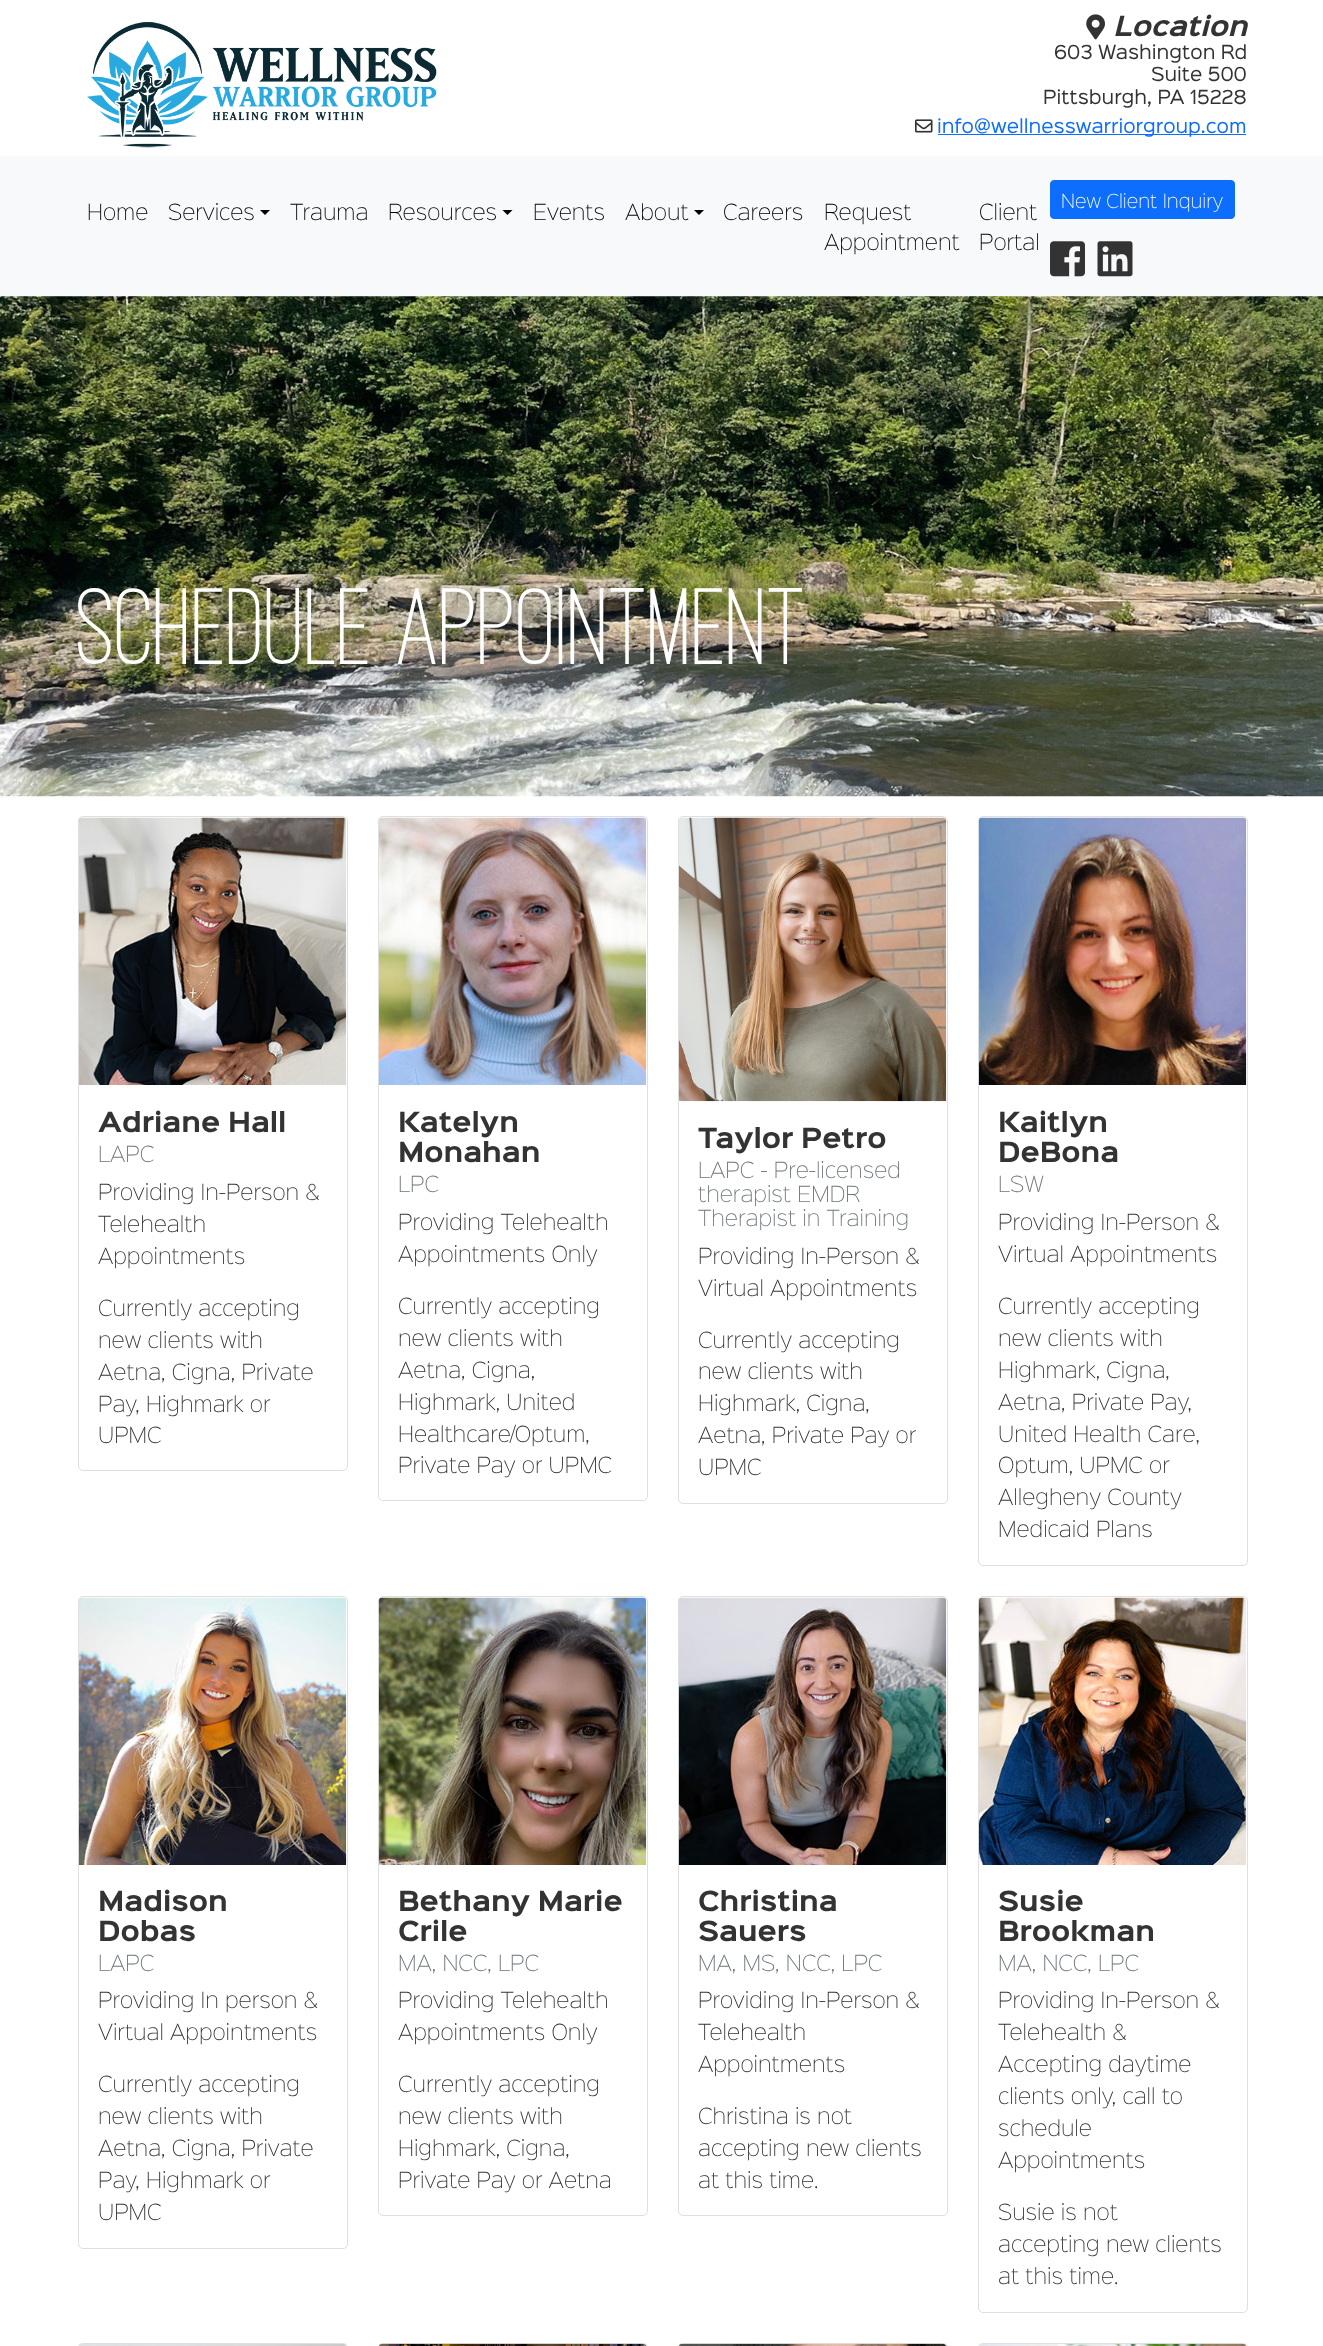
<!DOCTYPE html>
<meta charset="utf-8">
<style>body { margin: 0 } canvas { display: block }</style>
<canvas id="canvas" width="1323" height="2346"></canvas>
<img id="img1" src="images/1.png" hidden>
<img id="img2" src="images/2.png" hidden>
<img id="img3" src="images/3.png" hidden>
<img id="img4" src="images/4.png" hidden>
<img id="img5" src="images/5.png" hidden>
<img id="img6" src="images/6.png" hidden>
<img id="img7" src="images/7.png" hidden>
<img id="img8" src="images/8.png" hidden>
<img id="img9" src="images/9.png" hidden>
<img id="img10" src="images/10.png" hidden>
<img id="img11" src="images/11.png" hidden>
<img id="img12" src="images/12.png" hidden>
<img id="img13" src="images/13.png" hidden>
<img id="img14" src="images/14.png" hidden>
<img id="img15" src="images/15.png" hidden>
<img id="img16" src="images/16.png" hidden>
<img id="img17" src="images/17.png" hidden>
<img id="img18" src="images/18.png" hidden>
<script>
window.onload = function () {
    const canvas = document.getElementById('canvas');
    const context = canvas.getContext('2d');
    context.miterLimit = 4;
    context.fontKerning = 'normal';

    context.fillStyle = 'rgb(255, 255, 255)';
    context.fillRect(0, 0, 1323, 2346);
    context.drawImage(document.getElementById('img1'), 87, 22, 350, 126);
    context.drawImage(document.getElementById('img2'), 1086, 14, 19, 26);
    context.drawImage(document.getElementById('img3'), 915, 119, 18, 14);
    context.fillStyle = 'rgb(13, 110, 253)';
    context.fillRect(938, 134, 308, 1);
    context.fillStyle = 'rgb(248, 249, 250)';
    context.fillRect(0, 156, 1323, 140);
    context.fillStyle = 'rgb(0, 0, 0)';
    context.beginPath();
    context.moveTo(260, 210);
    context.lineTo(270, 210);
    context.lineTo(265, 215);
    context.closePath();
    context.fill();
    context.beginPath();
    context.moveTo(502.5, 210);
    context.lineTo(512.5, 210);
    context.lineTo(507.5, 215);
    context.closePath();
    context.fill();
    context.beginPath();
    context.moveTo(694, 210);
    context.lineTo(704, 210);
    context.lineTo(699, 215);
    context.closePath();
    context.fill();
    context.fillStyle = 'rgb(13, 110, 253)';
    context.beginPath();
    context.roundRect(1050.5, 180.5, 184, 38, 3.5);
    context.fill();
    context.strokeStyle = 'rgb(13, 110, 253)';
    context.stroke();
    context.drawImage(document.getElementById('img4'), 1050, 241, 35, 36);
    context.drawImage(document.getElementById('img5'), 1097, 241, 36, 36);
    context.drawImage(document.getElementById('img6'), 0, 296, 1323, 501);
    context.beginPath();
    context.roundRect(78.5, 816.5, 269, 654, 4.5);
    context.strokeStyle = 'rgb(223, 223, 223)';
    context.stroke();
    context.drawImage(document.getElementById('img7'), 78, 817, 269, 268);
    context.beginPath();
    context.roundRect(378.5, 816.5, 269, 684, 4.5);
    context.stroke();
    context.drawImage(document.getElementById('img8'), 378, 817, 269, 268);
    context.beginPath();
    context.roundRect(678.5, 816.5, 269, 687, 4.5);
    context.stroke();
    context.drawImage(document.getElementById('img9'), 678, 817, 269, 285);
    context.beginPath();
    context.roundRect(978.5, 816.5, 269, 749, 4.5);
    context.stroke();
    context.drawImage(document.getElementById('img10'), 978, 817, 269, 268);
    context.beginPath();
    context.roundRect(78.5, 1596.5, 269, 652, 4.5);
    context.stroke();
    context.drawImage(document.getElementById('img11'), 78, 1597, 269, 268);
    context.beginPath();
    context.roundRect(378.5, 1596.5, 269, 619, 4.5);
    context.stroke();
    context.drawImage(document.getElementById('img12'), 378, 1597, 269, 268);
    context.beginPath();
    context.roundRect(678.5, 1596.5, 269, 619, 4.5);
    context.stroke();
    context.drawImage(document.getElementById('img13'), 678, 1597, 269, 268);
    context.beginPath();
    context.roundRect(978.5, 1596.5, 269, 716, 4.5);
    context.stroke();
    context.drawImage(document.getElementById('img14'), 978, 1597, 269, 268);
    context.beginPath();
    context.roundRect(78.5, 2343.5, 269, 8, 4.5);
    context.stroke();
    context.drawImage(document.getElementById('img15'), 79, 2344, 267, 2);
    context.beginPath();
    context.roundRect(378.5, 2343.5, 269, 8, 4.5);
    context.stroke();
    context.drawImage(document.getElementById('img16'), 379, 2343, 267, 3);
    context.beginPath();
    context.roundRect(678.5, 2343.5, 269, 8, 4.5);
    context.stroke();
    context.drawImage(document.getElementById('img17'), 679, 2343, 267, 3);
    context.beginPath();
    context.roundRect(978.5, 2343.5, 269, 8, 4.5);
    context.stroke();
    context.drawImage(document.getElementById('img18'), 979, 2343, 267, 3);
    context.font = 'italic bold 25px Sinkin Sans';
    context.fillStyle = 'rgb(51, 51, 51)';
    context.fillText('Location', 1113, 36);
    context.font = '17.5px Sinkin Sans';
    context.fillText('603 Washington Rd', 1054, 59);
    context.fillText('Suite 500', 1151, 81);
    context.fillText('Pittsburgh, PA 15228', 1043, 104);
    context.fillStyle = 'rgb(13, 110, 253)';
    context.fillText('info@wellnesswarriorgroup.com', 937, 133);
    context.font = '300 20px Sinkin Sans';
    context.fillStyle = 'rgb(0, 0, 0)';
    context.fillText('Home', 87, 220);
    context.fillText('Services', 168, 220);
    context.fillText('Trauma', 290, 220);
    context.fillText('Resources', 388, 220);
    context.fillText('Events', 533, 220);
    context.fillText('About', 625, 220);
    context.fillText('Careers', 723, 220);
    context.fillText('Request', 824, 220);
    context.fillText('Appointment', 824, 250);
    context.fillText('Client', 979, 220);
    context.fillText('Portal', 979, 250);
    context.font = '300 17.5px Sinkin Sans';
    context.fillStyle = 'rgb(255, 255, 255)';
    context.fillText('New Client Inquiry', 1061, 208);
    context.font = '500 112.5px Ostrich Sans';
    context.fillText('Schedule Appointment', 77, 664);
    context.font = 'bold 25px Sinkin Sans';
    context.fillStyle = 'rgb(51, 51, 51)';
    context.fillText('Adriane Hall', 98, 1132);
    context.font = '300 20px Sinkin Sans';
    context.fillStyle = 'rgb(108, 117, 125)';
    context.fillText('LAPC', 98, 1162);
    context.fillStyle = 'rgb(51, 51, 51)';
    context.fillText('Providing In-Person &', 98, 1200);
    context.fillText('Telehealth', 98, 1232);
    context.fillText('Appointments', 98, 1264);
    context.fillText('Currently accepting', 98, 1316);
    context.fillText('new clients with', 98, 1348);
    context.fillText('Aetna, Cigna, Private', 98, 1380);
    context.fillText('Pay, Highmark or', 98, 1412);
    context.fillText('UPMC', 98, 1443);
    context.font = 'bold 25px Sinkin Sans';
    context.fillText('Katelyn', 398, 1132);
    context.fillText('Monahan', 398, 1162);
    context.font = '300 20px Sinkin Sans';
    context.fillStyle = 'rgb(108, 117, 125)';
    context.fillText('LPC', 398, 1192);
    context.fillStyle = 'rgb(51, 51, 51)';
    context.fillText('Providing Telehealth', 398, 1230);
    context.fillText('Appointments Only', 398, 1262);
    context.fillText('Currently accepting', 398, 1314);
    context.fillText('new clients with', 398, 1346);
    context.fillText('Aetna, Cigna,', 398, 1378);
    context.fillText('Highmark, United', 398, 1410);
    context.fillText('Healthcare/Optum,', 398, 1442);
    context.fillText('Private Pay or UPMC', 398, 1473);
    context.font = 'bold 25px Sinkin Sans';
    context.fillText('Taylor Petro', 698, 1148);
    context.font = '300 20px Sinkin Sans';
    context.fillStyle = 'rgb(108, 117, 125)';
    context.fillText('LAPC - Pre-licensed', 698, 1178);
    context.fillText('therapist EMDR', 698, 1202);
    context.fillText('Therapist in Training', 698, 1226);
    context.fillStyle = 'rgb(51, 51, 51)';
    context.fillText('Providing In-Person &', 698, 1264);
    context.fillText('Virtual Appointments', 698, 1296);
    context.fillText('Currently accepting', 698, 1348);
    context.fillText('new clients with', 698, 1379);
    context.fillText('Highmark, Cigna,', 698, 1411);
    context.fillText('Aetna, Private Pay or', 698, 1443);
    context.fillText('UPMC', 698, 1475);
    context.font = 'bold 25px Sinkin Sans';
    context.fillText('Kaitlyn', 998, 1132);
    context.fillText('DeBona', 998, 1162);
    context.font = '300 20px Sinkin Sans';
    context.fillStyle = 'rgb(108, 117, 125)';
    context.fillText('LSW', 998, 1192);
    context.fillStyle = 'rgb(51, 51, 51)';
    context.fillText('Providing In-Person &', 998, 1230);
    context.fillText('Virtual Appointments', 998, 1262);
    context.fillText('Currently accepting', 998, 1314);
    context.fillText('new clients with', 998, 1346);
    context.fillText('Highmark, Cigna,', 998, 1378);
    context.fillText('Aetna, Private Pay,', 998, 1410);
    context.fillText('United Health Care,', 998, 1442);
    context.fillText('Optum, UPMC or', 998, 1473);
    context.fillText('Allegheny County', 998, 1505);
    context.fillText('Medicaid Plans', 998, 1537);
    context.font = 'bold 25px Sinkin Sans';
    context.fillText('Madison', 98, 1911);
    context.fillText('Dobas', 98, 1941);
    context.font = '300 20px Sinkin Sans';
    context.fillStyle = 'rgb(108, 117, 125)';
    context.fillText('LAPC', 98, 1971);
    context.fillStyle = 'rgb(51, 51, 51)';
    context.fillText('Providing In person &', 98, 2008);
    context.fillText('Virtual Appointments', 98, 2040);
    context.fillText('Currently accepting', 98, 2092);
    context.fillText('new clients with', 98, 2124);
    context.fillText('Aetna, Cigna, Private', 98, 2156);
    context.fillText('Pay, Highmark or', 98, 2188);
    context.fillText('UPMC', 98, 2220);
    context.font = 'bold 25px Sinkin Sans';
    context.fillText('Bethany Marie', 398, 1911);
    context.fillText('Crile', 398, 1941);
    context.font = '300 20px Sinkin Sans';
    context.fillStyle = 'rgb(108, 117, 125)';
    context.fillText('MA, NCC, LPC', 398, 1971);
    context.fillStyle = 'rgb(51, 51, 51)';
    context.fillText('Providing Telehealth', 398, 2008);
    context.fillText('Appointments Only', 398, 2040);
    context.fillText('Currently accepting', 398, 2092);
    context.fillText('new clients with', 398, 2124);
    context.fillText('Highmark, Cigna,', 398, 2156);
    context.fillText('Private Pay or Aetna', 398, 2188);
    context.font = 'bold 25px Sinkin Sans';
    context.fillText('Christina', 698, 1911);
    context.fillText('Sauers', 698, 1941);
    context.font = '300 20px Sinkin Sans';
    context.fillStyle = 'rgb(108, 117, 125)';
    context.fillText('MA, MS, NCC, LPC', 698, 1971);
    context.fillStyle = 'rgb(51, 51, 51)';
    context.fillText('Providing In-Person &', 698, 2008);
    context.fillText('Telehealth', 698, 2040);
    context.fillText('Appointments', 698, 2072);
    context.fillText('Christina is not', 698, 2124);
    context.fillText('accepting new clients', 698, 2156);
    context.fillText('at this time.', 698, 2188);
    context.font = 'bold 25px Sinkin Sans';
    context.fillText('Susie', 998, 1911);
    context.fillText('Brookman', 998, 1941);
    context.font = '300 20px Sinkin Sans';
    context.fillStyle = 'rgb(108, 117, 125)';
    context.fillText('MA, NCC, LPC', 998, 1971);
    context.fillStyle = 'rgb(51, 51, 51)';
    context.fillText('Providing In-Person &', 998, 2008);
    context.fillText('Telehealth &', 998, 2040);
    context.fillText('Accepting daytime', 998, 2072);
    context.fillText('clients only, call to', 998, 2104);
    context.fillText('schedule', 998, 2136);
    context.fillText('Appointments', 998, 2168);
    context.fillText('Susie is not', 998, 2220);
    context.fillText('accepting new clients', 998, 2252);
    context.fillText('at this time.', 998, 2284);
};
</script>
